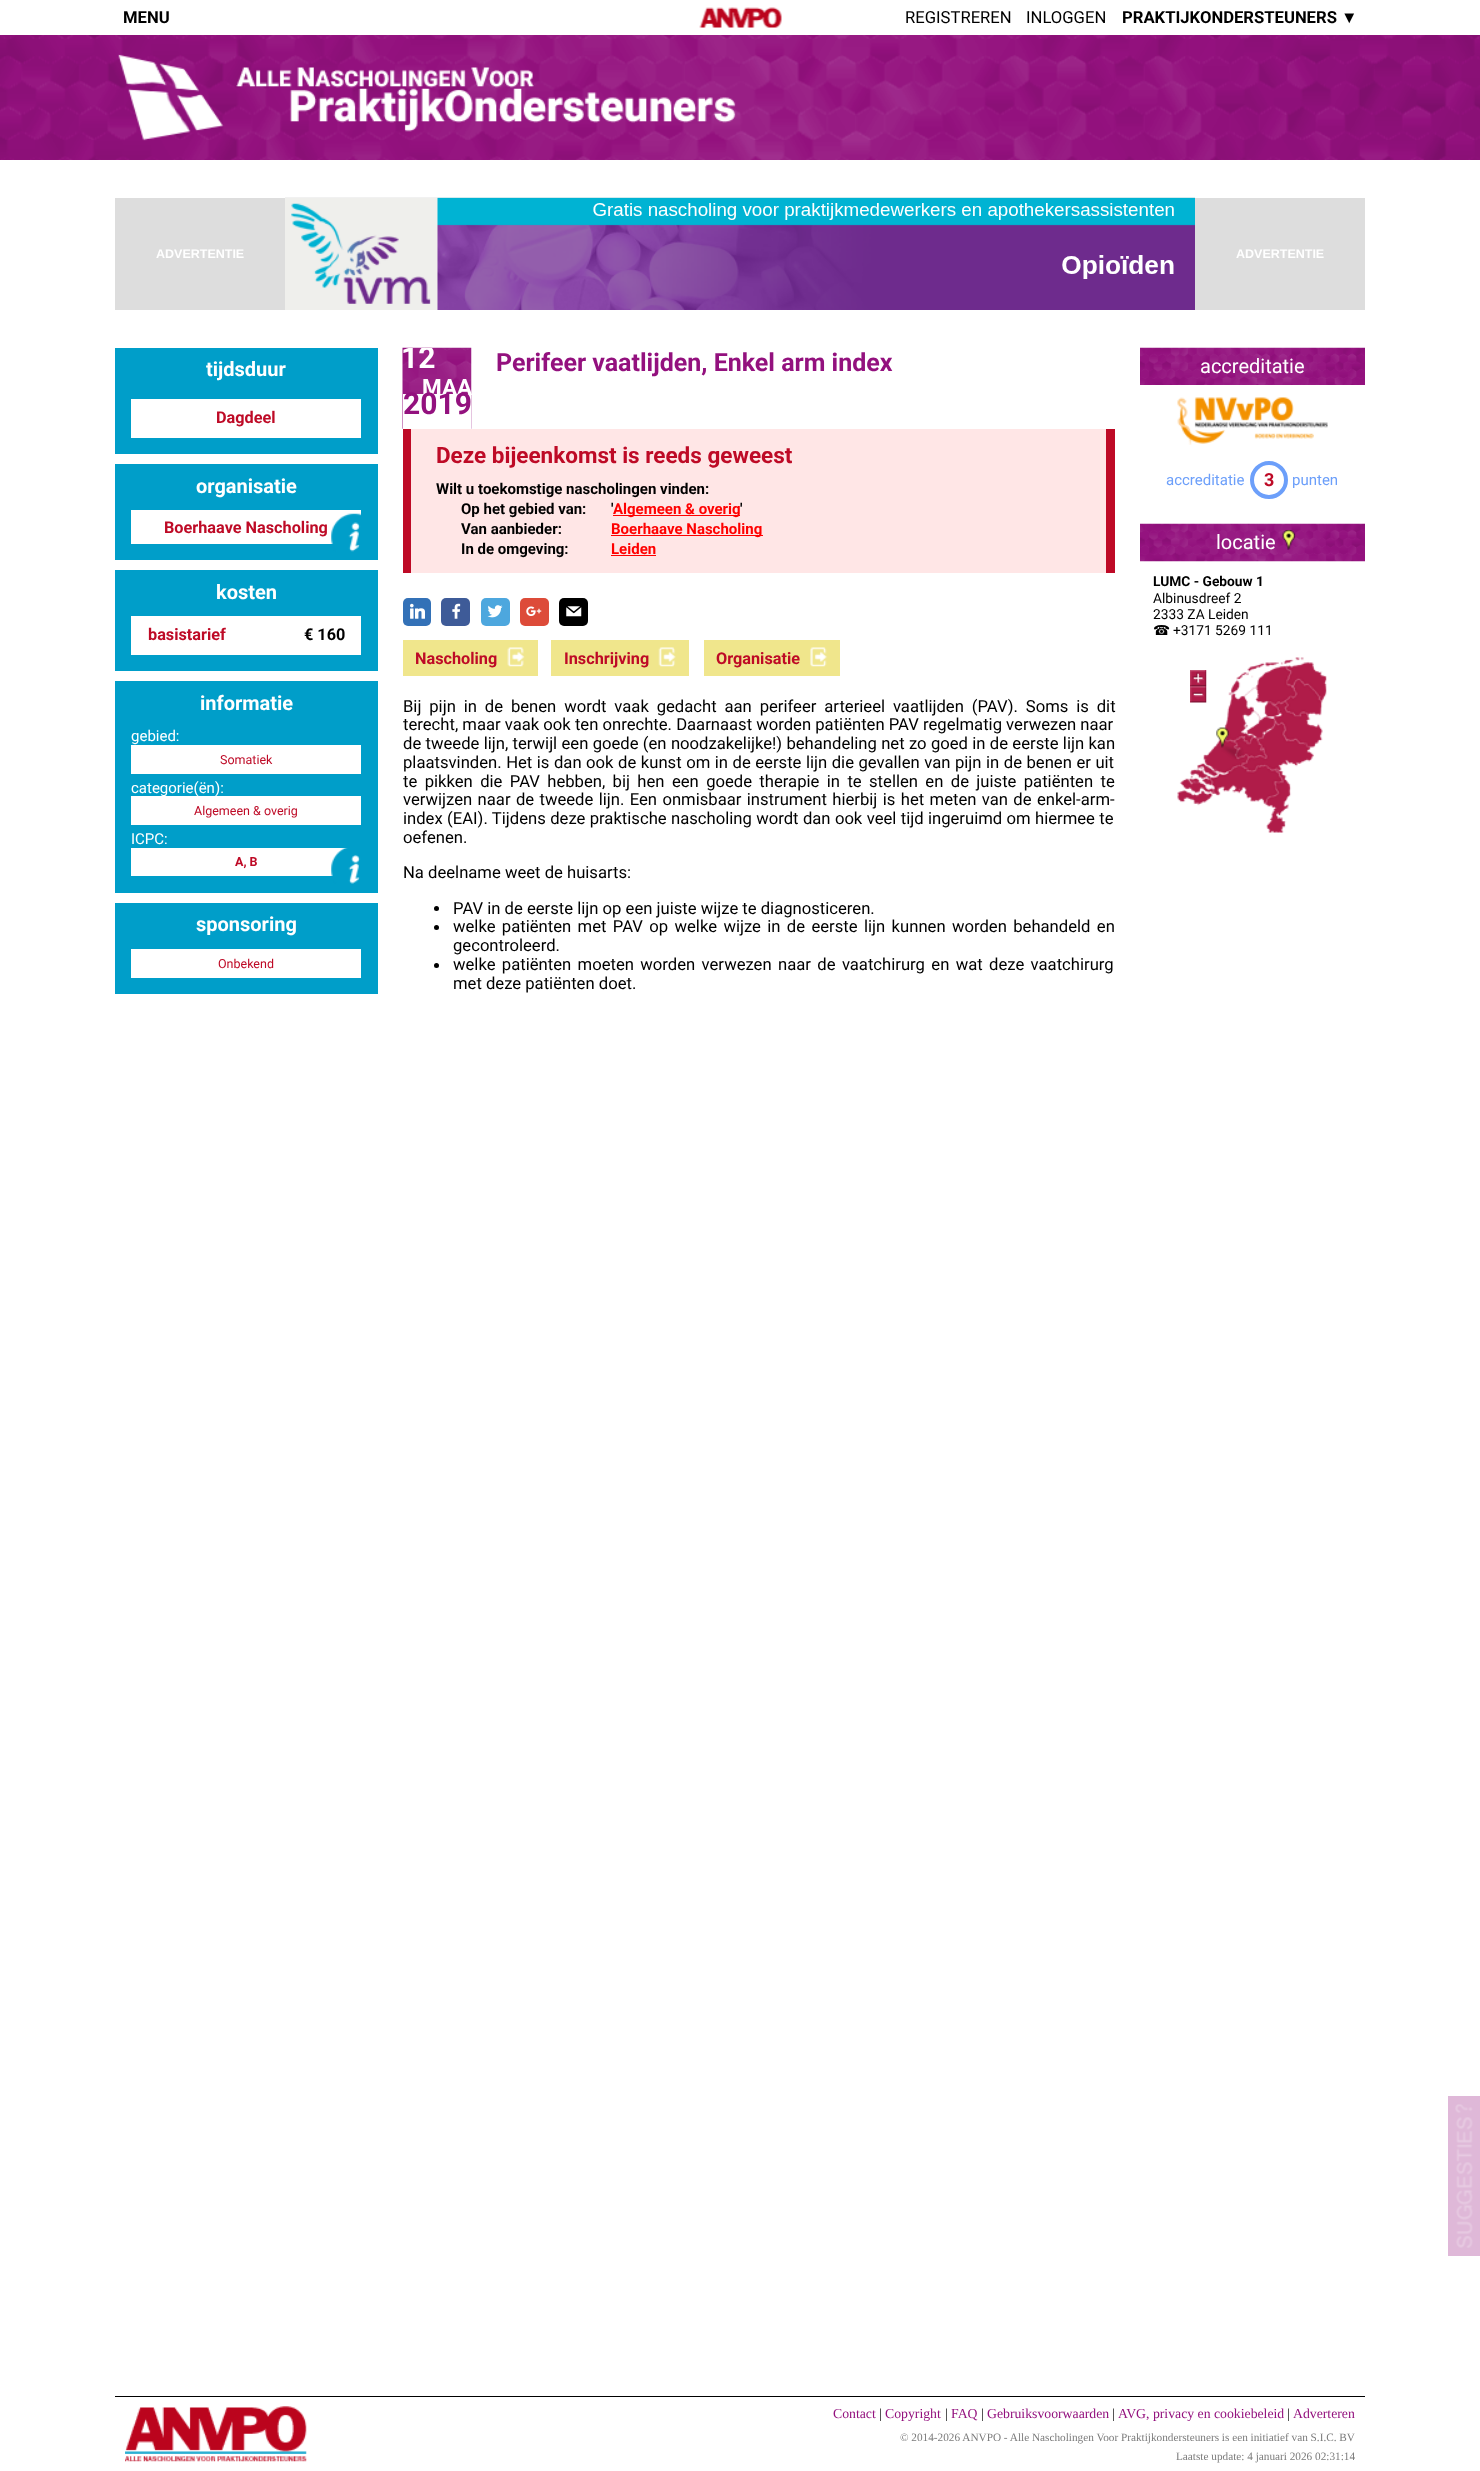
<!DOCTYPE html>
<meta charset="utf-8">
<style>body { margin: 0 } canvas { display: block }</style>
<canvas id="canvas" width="1480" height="2471"></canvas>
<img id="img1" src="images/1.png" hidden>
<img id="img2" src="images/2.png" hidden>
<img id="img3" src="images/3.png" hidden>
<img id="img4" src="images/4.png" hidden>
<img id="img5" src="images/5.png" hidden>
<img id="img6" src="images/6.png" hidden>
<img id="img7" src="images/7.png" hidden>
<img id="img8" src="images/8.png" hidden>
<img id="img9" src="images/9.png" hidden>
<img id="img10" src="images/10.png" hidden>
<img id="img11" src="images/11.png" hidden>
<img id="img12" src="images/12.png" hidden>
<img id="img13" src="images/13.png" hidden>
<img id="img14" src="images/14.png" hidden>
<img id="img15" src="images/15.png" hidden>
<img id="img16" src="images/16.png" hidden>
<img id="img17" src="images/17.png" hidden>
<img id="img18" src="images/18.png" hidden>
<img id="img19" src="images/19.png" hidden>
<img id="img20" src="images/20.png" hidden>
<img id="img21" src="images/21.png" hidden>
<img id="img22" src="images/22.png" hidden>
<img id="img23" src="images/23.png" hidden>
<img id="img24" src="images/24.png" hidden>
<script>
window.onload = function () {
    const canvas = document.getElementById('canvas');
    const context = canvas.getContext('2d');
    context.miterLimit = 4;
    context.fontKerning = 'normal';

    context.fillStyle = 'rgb(255, 255, 255)';
    context.fillRect(0, 0, 1480, 2471);
    context.drawImage(document.getElementById('img1'), 699, 7, 83, 21);
    context.drawImage(document.getElementById('img2'), 0, 35, 1480, 125);
    context.drawImage(document.getElementById('img3'), 118, 54, 618, 87);
    context.fillStyle = 'rgb(221, 221, 221)';
    context.fillRect(115, 198, 1250, 112);
    context.drawImage(document.getElementById('img4'), 285, 197, 910, 113);
    context.fillStyle = 'rgb(0, 158, 201)';
    context.fillRect(115, 348, 263, 106);
    context.fillStyle = 'rgb(255, 255, 255)';
    context.fillRect(131, 399, 230, 39);
    context.fillStyle = 'rgb(0, 158, 201)';
    context.fillRect(115, 464, 263, 96);
    context.fillStyle = 'rgb(255, 255, 255)';
    context.fillRect(131, 510, 230, 34);
    context.drawImage(document.getElementById('img5'), 331, 513, 30, 39);
    context.fillStyle = 'rgb(0, 158, 201)';
    context.fillRect(115, 570, 263, 101);
    context.fillStyle = 'rgb(255, 255, 255)';
    context.fillRect(131, 616, 230, 39);
    context.fillStyle = 'rgb(0, 158, 201)';
    context.fillRect(115, 681, 263, 212);
    context.fillStyle = 'rgb(255, 255, 255)';
    context.fillRect(131, 745, 230, 29);
    context.fillRect(131, 796, 230, 29);
    context.fillRect(131, 848, 217, 28);
    context.drawImage(document.getElementById('img6'), 331, 848, 30, 36);
    context.fillStyle = 'rgb(0, 158, 201)';
    context.fillRect(115, 903, 263, 91);
    context.fillStyle = 'rgb(255, 255, 255)';
    context.fillRect(131, 949, 230, 29);
    context.drawImage(document.getElementById('img7'), 402, 347, 70, 82);
    context.fillRect(403, 394, 68, 35);
    context.fillStyle = 'rgb(255, 230, 230)';
    context.fillRect(411, 429, 695, 144);
    context.fillStyle = 'rgb(190, 10, 38)';
    context.fillRect(1106, 429, 9, 144);
    context.fillRect(403, 429, 8, 144);
    context.fillStyle = 'rgb(255, 0, 0)';
    context.fillRect(613, 515, 127, 1);
    context.fillRect(611, 535, 152, 1);
    context.fillRect(611, 555, 45, 1);
    context.fillStyle = 'rgb(51, 113, 183)';
    context.beginPath();
    context.roundRect(403, 598, 28, 28, 5);
    context.fill();
    context.drawImage(document.getElementById('img8'), 410, 603, 15, 16);
    context.fillStyle = 'rgb(62, 91, 152)';
    context.beginPath();
    context.roundRect(441, 598, 29, 28, 5);
    context.fill();
    context.drawImage(document.getElementById('img9'), 452, 603, 9, 16);
    context.fillStyle = 'rgb(77, 167, 222)';
    context.beginPath();
    context.roundRect(481, 598, 29, 28, 5);
    context.fill();
    context.drawImage(document.getElementById('img10'), 487, 605, 16, 13);
    context.fillStyle = 'rgb(221, 75, 57)';
    context.beginPath();
    context.roundRect(520, 598, 29, 28, 5);
    context.fill();
    context.drawImage(document.getElementById('img11'), 526, 606, 16, 10);
    context.fillStyle = 'rgb(0, 0, 0)';
    context.beginPath();
    context.roundRect(559, 598, 29, 28, 5);
    context.fill();
    context.drawImage(document.getElementById('img12'), 566, 606, 16, 11);
    context.fillStyle = 'rgb(240, 230, 140)';
    context.fillRect(403, 640, 135, 36);
    context.drawImage(document.getElementById('img13'), 507, 647, 18, 20);
    context.fillRect(551, 640, 138, 36);
    context.drawImage(document.getElementById('img14'), 658, 647, 18, 20);
    context.fillRect(704, 640, 136, 36);
    context.drawImage(document.getElementById('img15'), 810, 647, 18, 20);
    context.fillStyle = 'rgb(0, 0, 0)';
    context.beginPath();
    context.arc(436.5, 908.5, 2.5, 0, 2 * Math.PI);
    context.fill();
    context.beginPath();
    context.arc(436.5, 927.5, 2.5, 0, 2 * Math.PI);
    context.fill();
    context.beginPath();
    context.arc(436.5, 965.5, 2.5, 0, 2 * Math.PI);
    context.fill();
    context.drawImage(document.getElementById('img16'), 1140, 347, 225, 38);
    context.drawImage(document.getElementById('img17'), 1177, 397, 151, 48);
    context.beginPath();
    context.arc(1269, 480, 17, 0, 2 * Math.PI);
    context.strokeStyle = 'rgb(108, 159, 250)';
    context.lineWidth = 4;
    context.stroke();
    context.drawImage(document.getElementById('img18'), 1140, 523, 225, 39);
    context.drawImage(document.getElementById('img19'), 1282, 530, 13, 20);
    context.drawImage(document.getElementById('img20'), 1177, 657, 150, 176);
    context.drawImage(document.getElementById('img21'), 1190, 670, 17, 33);
    context.drawImage(document.getElementById('img22'), 1216, 727, 28, 33);
    context.fillStyle = 'rgb(223, 184, 216)';
    context.fillRect(1448, 2096, 32, 160);
    context.drawImage(document.getElementById('img23'), 1455, 2104, 18, 144);
    context.fillStyle = 'rgb(0, 0, 0)';
    context.fillRect(115, 2396, 1250, 1);
    context.drawImage(document.getElementById('img24'), 125, 2406, 182, 56);
    context.font = 'bold 16.65px Roboto';
    context.fillText('MENU', 123, 23);
    context.font = '16.65px Roboto';
    context.fillText('REGISTREREN', 905, 23);
    context.fillText('INLOGGEN', 1026, 23);
    context.font = 'bold 16.65px Roboto';
    context.fillText('PRAKTIJKONDERSTEUNERS', 1122, 23);
    context.font = 'bold 16.65px Liberation Sans';
    context.fillText('▼', 1341, 23);
    context.font = 'bold 12.5px Liberation Sans';
    context.fillStyle = 'rgb(255, 255, 255)';
    context.fillText('ADVERTENTIE', 156, 258);
    context.fillText('ADVERTENTIE', 1236, 258);
    context.font = 'bold 20px Roboto';
    context.fillText('tijdsduur', 206, 376);
    context.font = 'bold 16.25px Roboto';
    context.fillStyle = 'rgb(190, 10, 38)';
    context.fillText('Dagdeel', 216, 423);
    context.font = 'bold 20px Roboto';
    context.fillStyle = 'rgb(255, 255, 255)';
    context.fillText('organisatie', 196, 493);
    context.font = 'bold 16.25px Roboto';
    context.fillStyle = 'rgb(190, 10, 38)';
    context.fillText('Boerhaave Nascholing', 164, 533);
    context.font = 'bold 20px Roboto';
    context.fillStyle = 'rgb(255, 255, 255)';
    context.fillText('kosten', 216, 599);
    context.font = 'bold 16.25px Roboto';
    context.fillStyle = 'rgb(190, 10, 38)';
    context.fillText('basistarief', 148, 640);
    context.fillStyle = 'rgb(0, 0, 0)';
    context.fillText('€ 160', 304, 640);
    context.font = 'bold 20px Roboto';
    context.fillStyle = 'rgb(255, 255, 255)';
    context.fillText('informatie', 200, 710);
    context.font = '15px Roboto';
    context.fillText('gebied:', 131, 741);
    context.font = '12.5px Roboto';
    context.fillStyle = 'rgb(190, 10, 38)';
    context.fillText('Somatiek', 220, 764);
    context.font = '15px Roboto';
    context.fillStyle = 'rgb(255, 255, 255)';
    context.fillText('categorie(ën):', 131, 793);
    context.font = '12.5px Roboto';
    context.fillStyle = 'rgb(190, 10, 38)';
    context.fillText('Algemeen & overig', 194, 815);
    context.font = '15px Roboto';
    context.fillStyle = 'rgb(255, 255, 255)';
    context.fillText('ICPC:', 131, 844);
    context.font = 'bold 12.5px Roboto';
    context.fillStyle = 'rgb(190, 10, 38)';
    context.fillText('A, B', 235, 866);
    context.font = 'bold 20px Roboto';
    context.fillStyle = 'rgb(255, 255, 255)';
    context.fillText('sponsoring', 196, 931);
    context.font = '12.5px Roboto';
    context.fillStyle = 'rgb(190, 10, 38)';
    context.fillText('Onbekend', 218, 968);
    context.save();
    context.beginPath();
    context.rect(115, 348, 1250, 661);
    context.clip();
    context.font = 'bold 30px Roboto';
    context.fillStyle = 'rgb(255, 255, 255)';
    context.fillText('12', 401, 368);
    context.restore();
    context.font = 'bold 22.5px Roboto';
    context.fillStyle = 'rgb(255, 255, 255)';
    context.fillText('MAA', 422, 395);
    context.font = 'bold 30px Roboto';
    context.fillStyle = 'rgb(147, 17, 126)';
    context.fillText('2019', 403, 414);
    context.font = 'bold 25px Roboto';
    context.fillText('Perifeer vaatlijden, Enkel arm index', 496, 371);
    context.font = 'bold 22.5px Roboto';
    context.fillStyle = 'rgb(190, 10, 38)';
    context.fillText('Deze bijeenkomst is reeds geweest', 436, 463);
    context.font = 'bold 15px Roboto';
    context.fillStyle = 'rgb(0, 0, 0)';
    context.fillText('Wilt u toekomstige nascholingen vinden:', 436, 494);
    context.fillText('Op het gebied van:', 461, 514);
    context.fillText('\'', 611, 514);
    context.fillStyle = 'rgb(255, 0, 0)';
    context.fillText('Algemeen & overig', 613, 514);
    context.fillStyle = 'rgb(0, 0, 0)';
    context.fillText('\'', 740, 514);
    context.fillText('Van aanbieder:', 461, 534);
    context.fillStyle = 'rgb(255, 0, 0)';
    context.fillText('Boerhaave Nascholing', 611, 534);
    context.fillStyle = 'rgb(0, 0, 0)';
    context.fillText('In de omgeving:', 461, 554);
    context.fillStyle = 'rgb(255, 0, 0)';
    context.fillText('Leiden', 611, 554);
    context.font = 'bold 16.25px Roboto';
    context.fillStyle = 'rgb(190, 10, 38)';
    context.fillText('Nascholing', 415, 664);
    context.fillText('Inschrijving', 564, 664);
    context.fillText('Organisatie', 716, 664);
    context.wordSpacing = '3.75px';
    context.font = '16.65px Roboto';
    context.fillStyle = 'rgb(0, 0, 0)';
    context.fillText('Bij pijn in de benen wordt vaak gedacht aan perifeer arterieel vaatlijden (PAV). Soms is dit', 403, 712);
    context.wordSpacing = '0px';
    context.fillText('terecht, maar vaak ook ten onrechte. Daarnaast worden patiënten PAV regelmatig verwezen naar', 403, 730);
    context.wordSpacing = '0.2px';
    context.fillText('de tweede lijn, terwijl een goede (en noodzakelijke!) behandeling net zo goed in de eerste lijn kan', 403, 749);
    context.wordSpacing = '0.4px';
    context.fillText('plaatsvinden. Het is dan ook de kunst om in de eerste lijn die gevallen van pijn in de benen er uit', 403, 768);
    context.wordSpacing = '3.25px';
    context.fillText('te pikken die PAV hebben, bij hen een goede therapie in te stellen en de juiste patiënten te', 403, 787);
    context.wordSpacing = '1.25px';
    context.fillText('verwijzen naar de tweede lijn. Een onmisbaar instrument hierbij is het meten van de enkel-arm-', 403, 805);
    context.wordSpacing = '0.25px';
    context.fillText('index (EAI). Tijdens deze praktische nascholing wordt dan ook veel tijd ingeruimd om hiermee te', 403, 824);
    context.wordSpacing = '0px';
    context.fillText('oefenen.', 403, 843);
    context.fillText('Na deelname weet de huisarts:', 403, 878);
    context.fillText('PAV in de eerste lijn op een juiste wijze te diagnosticeren.', 453, 914);
    context.wordSpacing = '2.25px';
    context.fillText('welke patiënten met PAV op welke wijze in de eerste lijn kunnen worden behandeld en', 453, 932);
    context.wordSpacing = '0px';
    context.fillText('gecontroleerd.', 453, 951);
    context.wordSpacing = '2.25px';
    context.fillText('welke patiënten moeten worden verwezen naar de vaatchirurg en wat deze vaatchirurg', 453, 970);
    context.wordSpacing = '0px';
    context.fillText('met deze patiënten doet.', 453, 989);
    context.font = '20px Roboto';
    context.fillStyle = 'rgb(255, 255, 255)';
    context.fillText('accreditatie', 1200, 373);
    context.font = '15px Roboto';
    context.fillStyle = 'rgb(108, 159, 250)';
    context.fillText('accreditatie', 1166, 485);
    context.font = 'bold 18px Roboto';
    context.fillStyle = 'rgb(190, 10, 38)';
    context.fillText('3', 1264, 486);
    context.font = '15px Roboto';
    context.fillStyle = 'rgb(108, 159, 250)';
    context.fillText('punten', 1292, 485);
    context.font = '20px Roboto';
    context.fillStyle = 'rgb(255, 255, 255)';
    context.fillText('locatie', 1216, 549);
    context.font = 'bold 13.75px Roboto';
    context.fillStyle = 'rgb(0, 0, 0)';
    context.fillText('LUMC - Gebouw 1', 1153, 586);
    context.font = '13.75px Roboto';
    context.fillText('Albinusdreef 2', 1153, 603);
    context.fillText('2333 ZA Leiden', 1153, 619);
    context.font = '13.75px DejaVu Sans';
    context.fillText('☎', 1153, 635);
    context.font = '13.75px Roboto';
    context.fillText('+3171 5269 111', 1173, 635);
    context.font = '13.75px Liberation Serif';
    context.fillStyle = 'rgb(147, 17, 126)';
    context.fillText('Contact', 833, 2418);
    context.fillStyle = 'rgb(0, 0, 0)';
    context.fillText('|', 879, 2418);
    context.fillStyle = 'rgb(147, 17, 126)';
    context.fillText('Copyright', 885, 2418);
    context.fillStyle = 'rgb(0, 0, 0)';
    context.fillText('|', 945, 2418);
    context.fillStyle = 'rgb(147, 17, 126)';
    context.fillText('FAQ', 951, 2418);
    context.fillStyle = 'rgb(0, 0, 0)';
    context.fillText('|', 981, 2418);
    context.fillStyle = 'rgb(147, 17, 126)';
    context.fillText('Gebruiksvoorwaarden', 987, 2418);
    context.fillStyle = 'rgb(0, 0, 0)';
    context.fillText('|', 1112, 2418);
    context.fillStyle = 'rgb(147, 17, 126)';
    context.fillText('AVG, privacy en cookiebeleid', 1118, 2418);
    context.fillStyle = 'rgb(0, 0, 0)';
    context.fillText('|', 1287, 2418);
    context.fillStyle = 'rgb(147, 17, 126)';
    context.fillText('Adverteren', 1293, 2418);
    context.font = '11.25px Liberation Serif';
    context.fillStyle = 'rgb(124, 124, 124)';
    context.fillText('© 2014-2026 ANVPO - Alle Nascholingen Voor Praktijkondersteuners is een initiatief van S.I.C. BV', 900, 2441);
    context.fillText('Laatste update: 4 januari 2026 02:31:14', 1176, 2460);
};
</script>
